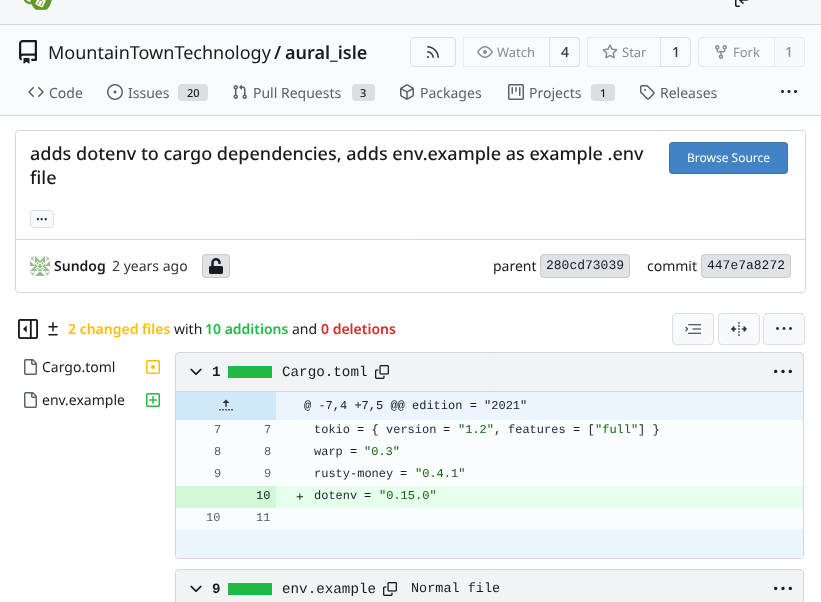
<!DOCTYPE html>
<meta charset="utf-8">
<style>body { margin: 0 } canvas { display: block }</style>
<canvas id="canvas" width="821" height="602"></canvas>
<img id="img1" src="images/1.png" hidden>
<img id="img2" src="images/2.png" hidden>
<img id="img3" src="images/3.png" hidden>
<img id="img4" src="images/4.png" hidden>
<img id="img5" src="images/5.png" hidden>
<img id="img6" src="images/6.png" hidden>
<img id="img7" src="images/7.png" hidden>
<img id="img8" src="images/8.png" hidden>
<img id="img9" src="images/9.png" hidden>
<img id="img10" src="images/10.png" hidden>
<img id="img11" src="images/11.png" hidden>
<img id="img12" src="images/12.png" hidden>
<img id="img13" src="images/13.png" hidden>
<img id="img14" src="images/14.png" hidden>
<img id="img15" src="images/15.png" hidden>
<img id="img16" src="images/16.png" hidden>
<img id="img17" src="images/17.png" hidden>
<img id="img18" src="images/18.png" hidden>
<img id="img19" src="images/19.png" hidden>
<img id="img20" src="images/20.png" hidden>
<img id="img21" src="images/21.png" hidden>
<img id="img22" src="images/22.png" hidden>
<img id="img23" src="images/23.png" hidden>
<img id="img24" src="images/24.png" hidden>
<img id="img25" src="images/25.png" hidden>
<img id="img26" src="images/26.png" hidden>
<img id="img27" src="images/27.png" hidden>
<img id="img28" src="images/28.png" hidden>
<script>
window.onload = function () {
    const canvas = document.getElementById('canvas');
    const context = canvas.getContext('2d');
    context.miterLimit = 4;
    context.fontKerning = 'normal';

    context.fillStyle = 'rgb(255, 255, 255)';
    context.fillRect(0, 0, 821, 602);
    context.fillStyle = 'rgb(246, 247, 250)';
    context.fillRect(0, 0, 821, 24);
    context.fillStyle = 'rgb(208, 215, 222)';
    context.fillRect(0, 24, 821, 1);
    context.drawImage(document.getElementById('img1'), 23, 0, 29, 10);
    context.drawImage(document.getElementById('img2'), 735, 0, 13, 7);
    context.fillStyle = 'rgb(249, 250, 251)';
    context.fillRect(0, 25, 821, 90);
    context.drawImage(document.getElementById('img3'), 19, 40, 18, 24);
    context.beginPath();
    context.roundRect(410.5, 37.5, 45, 29, 3.5);
    context.strokeStyle = 'rgb(221, 222, 225)';
    context.stroke();
    context.drawImage(document.getElementById('img4'), 427, 46, 12, 12);
    context.beginPath();
    context.roundRect(549.5, 37.5, 30, 29, [0, 3.5, 3.5, 0]);
    context.stroke();
    context.fillStyle = 'rgba(248, 249, 251, 0.55)';
    context.beginPath();
    context.roundRect(463, 37, 87, 30, [4, 0, 0, 4]);
    context.fill();
    context.strokeStyle = 'rgba(0, 0, 23, 0.06)';
    context.strokeRect(463.5, 37.5, 86, 29);
    context.drawImage(document.getElementById('img5'), 477, 46, 16, 12);
    context.beginPath();
    context.roundRect(660.5, 37.5, 30, 29, [0, 3.5, 3.5, 0]);
    context.strokeStyle = 'rgb(221, 222, 225)';
    context.stroke();
    context.beginPath();
    context.roundRect(587, 37, 74, 30, [4, 0, 0, 4]);
    context.fill();
    context.strokeStyle = 'rgba(0, 0, 23, 0.06)';
    context.strokeRect(587.5, 37.5, 73, 29);
    context.drawImage(document.getElementById('img6'), 602, 44, 16, 15);
    context.beginPath();
    context.roundRect(698.5, 37.5, 76, 29, [3.5, 0, 0, 3.5]);
    context.strokeStyle = 'rgb(233, 234, 237)';
    context.stroke();
    context.drawImage(document.getElementById('img7'), 715, 45, 12, 14);
    context.fillStyle = 'rgb(248, 249, 251)';
    context.beginPath();
    context.roundRect(774.5, 37.5, 30, 29, [0, 3.5, 3.5, 0]);
    context.fill();
    context.stroke();
    context.drawImage(document.getElementById('img8'), 28, 87, 16, 10);
    context.drawImage(document.getElementById('img9'), 107, 84, 16, 16);
    context.fillStyle = 'rgb(219, 223, 226)';
    context.beginPath();
    context.roundRect(178, 84, 30, 17, 4);
    context.fill();
    context.drawImage(document.getElementById('img10'), 233, 84, 14, 15);
    context.beginPath();
    context.roundRect(352, 84, 23, 17, 4);
    context.fill();
    context.drawImage(document.getElementById('img11'), 400, 84, 14, 16);
    context.drawImage(document.getElementById('img12'), 508, 84, 16, 16);
    context.beginPath();
    context.roundRect(591, 84, 24, 17, 4);
    context.fill();
    context.drawImage(document.getElementById('img13'), 640, 85, 15, 15);
    context.drawImage(document.getElementById('img14'), 781, 90, 16, 3);
    context.fillStyle = 'rgb(208, 215, 222)';
    context.fillRect(0, 115, 821, 1);
    context.beginPath();
    context.roundRect(15.5, 130.5, 790, 109, [3.5, 3.5, 0, 0]);
    context.strokeStyle = 'rgb(208, 215, 222)';
    context.stroke();
    context.fillStyle = 'rgb(65, 131, 196)';
    context.beginPath();
    context.roundRect(669, 142, 119, 32, 4);
    context.fill();
    context.beginPath();
    context.roundRect(669.5, 142.5, 118, 31, 3.5);
    context.strokeStyle = 'rgba(0, 0, 23, 0.11)';
    context.stroke();
    context.fillStyle = 'rgb(248, 249, 251)';
    context.beginPath();
    context.roundRect(30.5, 210.5, 23, 17, 3.5);
    context.fill();
    context.strokeStyle = 'rgb(220, 221, 225)';
    context.stroke();
    context.fillStyle = 'rgb(208, 215, 222)';
    context.beginPath();
    context.moveTo(15, 240);
    context.lineTo(806, 240);
    context.lineTo(806, 289);
    context.bezierCurveTo(806, 291, 804, 293, 802, 293);
    context.lineTo(19, 293);
    context.bezierCurveTo(17, 293, 15, 291, 15, 289);
    context.closePath();
    context.moveTo(16, 240);
    context.lineTo(805, 240);
    context.lineTo(805, 289);
    context.bezierCurveTo(805, 291, 804, 292, 802, 292);
    context.lineTo(19, 292);
    context.bezierCurveTo(17, 292, 16, 291, 16, 289);
    context.closePath();
    context.fill('evenodd');
    context.drawImage(document.getElementById('img15'), 30, 256, 20, 20);
    context.fillStyle = 'rgb(224, 226, 229)';
    context.beginPath();
    context.roundRect(202, 254, 28, 24, 4);
    context.fill();
    context.beginPath();
    context.roundRect(202.5, 254.5, 27, 23, 3.5);
    context.strokeStyle = 'rgba(0, 0, 23, 0.11)';
    context.stroke();
    context.drawImage(document.getElementById('img16'), 209, 258, 14, 16);
    context.beginPath();
    context.roundRect(540, 254, 90, 24, 4);
    context.fill();
    context.beginPath();
    context.roundRect(540.5, 254.5, 89, 23, 3.5);
    context.stroke();
    context.beginPath();
    context.roundRect(701, 254, 90, 24, 4);
    context.fill();
    context.beginPath();
    context.roundRect(701.5, 254.5, 89, 23, 3.5);
    context.stroke();
    context.drawImage(document.getElementById('img17'), 18, 319, 20, 20);
    context.drawImage(document.getElementById('img18'), 48, 322, 10, 14);
    context.fillStyle = 'rgb(248, 249, 251)';
    context.beginPath();
    context.roundRect(672.5, 313.5, 41, 31, 3.5);
    context.fill();
    context.strokeStyle = 'rgb(220, 221, 225)';
    context.stroke();
    context.drawImage(document.getElementById('img19'), 685, 324, 16, 10);
    context.beginPath();
    context.roundRect(718.5, 313.5, 41, 31, 3.5);
    context.fill();
    context.stroke();
    context.drawImage(document.getElementById('img20'), 731, 322, 16, 14);
    context.beginPath();
    context.roundRect(763.5, 313.5, 41, 31, 3.5);
    context.fill();
    context.stroke();
    context.drawImage(document.getElementById('img21'), 776, 327, 16, 3);
    context.drawImage(document.getElementById('img22'), 24, 359, 13, 16);
    context.drawImage(document.getElementById('img23'), 146, 360, 14, 14);
    context.drawImage(document.getElementById('img22'), 24, 392, 13, 16);
    context.drawImage(document.getElementById('img24'), 146, 393, 14, 14);
    context.fillStyle = 'rgb(241, 243, 245)';
    context.beginPath();
    context.roundRect(175.5, 352.5, 628, 39, [3.5, 3.5, 0, 0]);
    context.fill();
    context.strokeStyle = 'rgb(208, 215, 222)';
    context.stroke();
    context.drawImage(document.getElementById('img25'), 190, 368, 12, 7);
    context.fillStyle = 'rgb(33, 186, 69)';
    context.fillRect(228, 366, 44, 12);
    context.drawImage(document.getElementById('img26'), 375, 365, 14, 14);
    context.drawImage(document.getElementById('img27'), 774, 369, 18, 5);
    context.fillStyle = 'rgb(208, 215, 222)';
    context.beginPath();
    context.moveTo(175, 392);
    context.lineTo(804, 392);
    context.lineTo(804, 555);
    context.bezierCurveTo(804, 557, 802, 559, 800, 559);
    context.lineTo(179, 559);
    context.bezierCurveTo(177, 559, 175, 557, 175, 555);
    context.closePath();
    context.moveTo(176, 392);
    context.lineTo(803, 392);
    context.lineTo(803, 555);
    context.bezierCurveTo(803, 557, 802, 558, 800, 558);
    context.lineTo(179, 558);
    context.bezierCurveTo(177, 558, 176, 557, 176, 555);
    context.closePath();
    context.fill('evenodd');
    context.fillStyle = 'rgb(250, 253, 255)';
    context.beginPath();
    context.roundRect(176, 392, 627, 166, 4);
    context.fill();
    context.fillStyle = 'rgb(236, 245, 253)';
    context.fillRect(276, 392, 527, 28);
    context.fillStyle = 'rgb(207, 232, 250)';
    context.fillRect(176, 392, 100, 28);
    context.drawImage(document.getElementById('img28'), 219, 399, 14, 12);
    context.fillStyle = 'rgb(230, 255, 237)';
    context.fillRect(276, 486, 527, 22);
    context.fillStyle = 'rgb(209, 248, 217)';
    context.fillRect(176, 486, 100, 22);
    context.fillStyle = 'rgb(236, 245, 253)';
    context.beginPath();
    context.roundRect(176, 530, 100, 28, [0, 0, 0, 3]);
    context.fill();
    context.fillRect(276, 530, 28, 28);
    context.beginPath();
    context.roundRect(304, 530, 499, 28, [0, 0, 3, 0]);
    context.fill();
    context.fillStyle = 'rgb(241, 243, 245)';
    context.beginPath();
    context.moveTo(179, 569.5);
    context.lineTo(800, 569.5);
    context.bezierCurveTo(802, 569.5, 803.5, 571, 803.5, 573);
    context.lineTo(803.5, 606.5);
    context.lineTo(175.5, 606.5);
    context.lineTo(175.5, 573);
    context.bezierCurveTo(175.5, 571, 177, 569.5, 179, 569.5);
    context.closePath();
    context.fill();
    context.stroke();
    context.drawImage(document.getElementById('img25'), 190, 585, 12, 7);
    context.fillStyle = 'rgb(33, 186, 69)';
    context.fillRect(228, 583, 44, 12);
    context.drawImage(document.getElementById('img26'), 383, 582, 14, 14);
    context.drawImage(document.getElementById('img27'), 774, 586, 18, 5);
    context.font = '18px Noto Sans';
    context.fillStyle = 'rgb(24, 28, 33)';
    context.fillText('MountainTownTechnology', 48, 59);
    context.font = '600 18px Noto Sans';
    context.fillText('/', 274, 59);
    context.fillText('aural_isle', 285, 59);
    context.font = '13px Noto Sans';
    context.fillStyle = 'rgb(138, 142, 145)';
    context.fillText('Watch', 497, 57);
    context.font = '500 14px Noto Sans';
    context.fillStyle = 'rgb(48, 54, 59)';
    context.fillText('4', 561, 57);
    context.font = '13px Noto Sans';
    context.fillStyle = 'rgb(138, 142, 145)';
    context.fillText('Star', 622, 57);
    context.font = '500 14px Noto Sans';
    context.fillStyle = 'rgb(48, 54, 59)';
    context.fillText('1', 672, 57);
    context.font = '13px Noto Sans';
    context.fillStyle = 'rgb(138, 142, 145)';
    context.fillText('Fork', 733, 57);
    context.font = '500 14px Noto Sans';
    context.fillText('1', 785, 57);
    context.font = '14px Noto Sans';
    context.fillStyle = 'rgb(91, 97, 103)';
    context.fillText('Code', 49, 98);
    context.fillText('Issues', 128, 98);
    context.font = '500 11px Noto Sans';
    context.fillStyle = 'rgb(24, 28, 33)';
    context.fillText('20', 187, 97);
    context.font = '14px Noto Sans';
    context.fillStyle = 'rgb(91, 97, 103)';
    context.fillText('Pull Requests', 253, 98);
    context.font = '500 11px Noto Sans';
    context.fillStyle = 'rgb(24, 28, 33)';
    context.fillText('3', 360, 97);
    context.font = '14px Noto Sans';
    context.fillStyle = 'rgb(91, 97, 103)';
    context.fillText('Packages', 420, 98);
    context.fillText('Projects', 529, 98);
    context.font = '500 11px Noto Sans';
    context.fillStyle = 'rgb(24, 28, 33)';
    context.fillText('1', 600, 97);
    context.font = '14px Noto Sans';
    context.fillStyle = 'rgb(91, 97, 103)';
    context.fillText('Releases', 660, 98);
    context.font = '500 18px Noto Sans';
    context.fillStyle = 'rgb(24, 28, 33)';
    context.fillText('adds dotenv to cargo dependencies, adds env.example as example .env', 30, 160);
    context.fillText('file', 30, 184);
    context.font = '12px Noto Sans';
    context.fillStyle = 'rgb(255, 255, 255)';
    context.fillText('Browse Source', 687, 162);
    context.font = '600 14px Noto Sans';
    context.fillStyle = 'rgb(24, 28, 33)';
    context.fillText('...', 36, 220);
    context.fillText('Sundog', 54, 271);
    context.font = '14px Noto Sans';
    context.fillStyle = 'rgb(48, 54, 59)';
    context.fillText('2 years ago', 112, 271);
    context.fillStyle = 'rgb(24, 28, 33)';
    context.fillText('parent', 493, 271);
    context.font = '13px Liberation Mono';
    context.fillText('280cd73039', 546, 269);
    context.font = '14px Noto Sans';
    context.fillText('commit', 647, 271);
    context.font = '13px Liberation Mono';
    context.fillText('447e7a8272', 707, 269);
    context.font = '600 14px Noto Sans';
    context.fillStyle = 'rgb(251, 189, 8)';
    context.fillText('2 changed files', 68, 334);
    context.font = '14px Noto Sans';
    context.fillStyle = 'rgb(24, 28, 33)';
    context.fillText('with', 174, 334);
    context.font = '600 14px Noto Sans';
    context.fillStyle = 'rgb(33, 186, 69)';
    context.fillText('10 additions', 205, 334);
    context.font = '14px Noto Sans';
    context.fillStyle = 'rgb(24, 28, 33)';
    context.fillText('and', 292, 334);
    context.font = '600 14px Noto Sans';
    context.fillStyle = 'rgb(219, 40, 40)';
    context.fillText('0 deletions', 321, 334);
    context.font = '14px Noto Sans';
    context.fillStyle = 'rgb(24, 28, 33)';
    context.fillText('Cargo.toml', 42, 372);
    context.fillText('env.example', 42, 405);
    context.font = 'bold 14.25px Liberation Mono';
    context.fillText('1', 212, 376);
    context.font = '14.25px Liberation Mono';
    context.fillText('Cargo.toml', 282, 376);
    context.font = '12px Liberation Mono';
    context.fillText('@ -7,4 +7,5 @@ edition = "2021"', 304, 409);
    context.fillStyle = 'rgb(91, 97, 103)';
    context.fillText('7', 214, 433);
    context.fillText('7', 264, 433);
    context.fillStyle = 'rgb(36, 41, 46)';
    context.fillText('tokio', 314, 433);
    context.fillStyle = 'rgb(24, 28, 33)';
    context.fillText('= {', 357, 433);
    context.fillStyle = 'rgb(36, 41, 46)';
    context.fillText('version', 386, 433);
    context.fillStyle = 'rgb(24, 28, 33)';
    context.fillText('=', 443, 433);
    context.fillStyle = 'rgb(16, 99, 3)';
    context.fillText('"1.2"', 458, 433);
    context.fillStyle = 'rgb(36, 41, 46)';
    context.fillText('features', 508, 433);
    context.fillStyle = 'rgb(24, 28, 33)';
    context.fillText('= [', 573, 433);
    context.fillStyle = 'rgb(16, 99, 3)';
    context.fillText('"full"', 595, 433);
    context.fillStyle = 'rgb(24, 28, 33)';
    context.fillText('] }', 638, 433);
    context.fillText(',', 494, 433);
    context.fillStyle = 'rgb(91, 97, 103)';
    context.fillText('8', 214, 455);
    context.fillText('8', 264, 455);
    context.fillStyle = 'rgb(36, 41, 46)';
    context.fillText('warp', 314, 455);
    context.fillStyle = 'rgb(24, 28, 33)';
    context.fillText('=', 350, 455);
    context.fillStyle = 'rgb(16, 99, 3)';
    context.fillText('"0.3"', 364, 455);
    context.fillStyle = 'rgb(91, 97, 103)';
    context.fillText('9', 214, 477);
    context.fillText('9', 264, 477);
    context.fillStyle = 'rgb(36, 41, 46)';
    context.fillText('rusty-money', 314, 477);
    context.fillStyle = 'rgb(24, 28, 33)';
    context.fillText('=', 400, 477);
    context.fillStyle = 'rgb(16, 99, 3)';
    context.fillText('"0.4.1"', 415, 477);
    context.fillStyle = 'rgb(36, 41, 46)';
    context.fillText('dotenv', 314, 499);
    context.fillStyle = 'rgb(24, 28, 33)';
    context.fillText('=', 364, 499);
    context.fillStyle = 'rgb(16, 99, 3)';
    context.fillText('"0.15.0"', 379, 499);
    context.fillStyle = 'rgb(24, 28, 33)';
    context.fillText('10', 256, 499);
    context.font = '13px Liberation Mono';
    context.fillText('+', 296, 501);
    context.font = '12px Liberation Mono';
    context.fillStyle = 'rgb(91, 97, 103)';
    context.fillText('10', 206, 521);
    context.fillText('11', 256, 521);
    context.font = 'bold 14.25px Liberation Mono';
    context.fillStyle = 'rgb(24, 28, 33)';
    context.fillText('9', 212, 593);
    context.font = '14.25px Liberation Mono';
    context.fillText('env.example', 282, 593);
    context.font = '13.5px Liberation Mono';
    context.fillText('Normal file', 411, 592);
};
</script>
